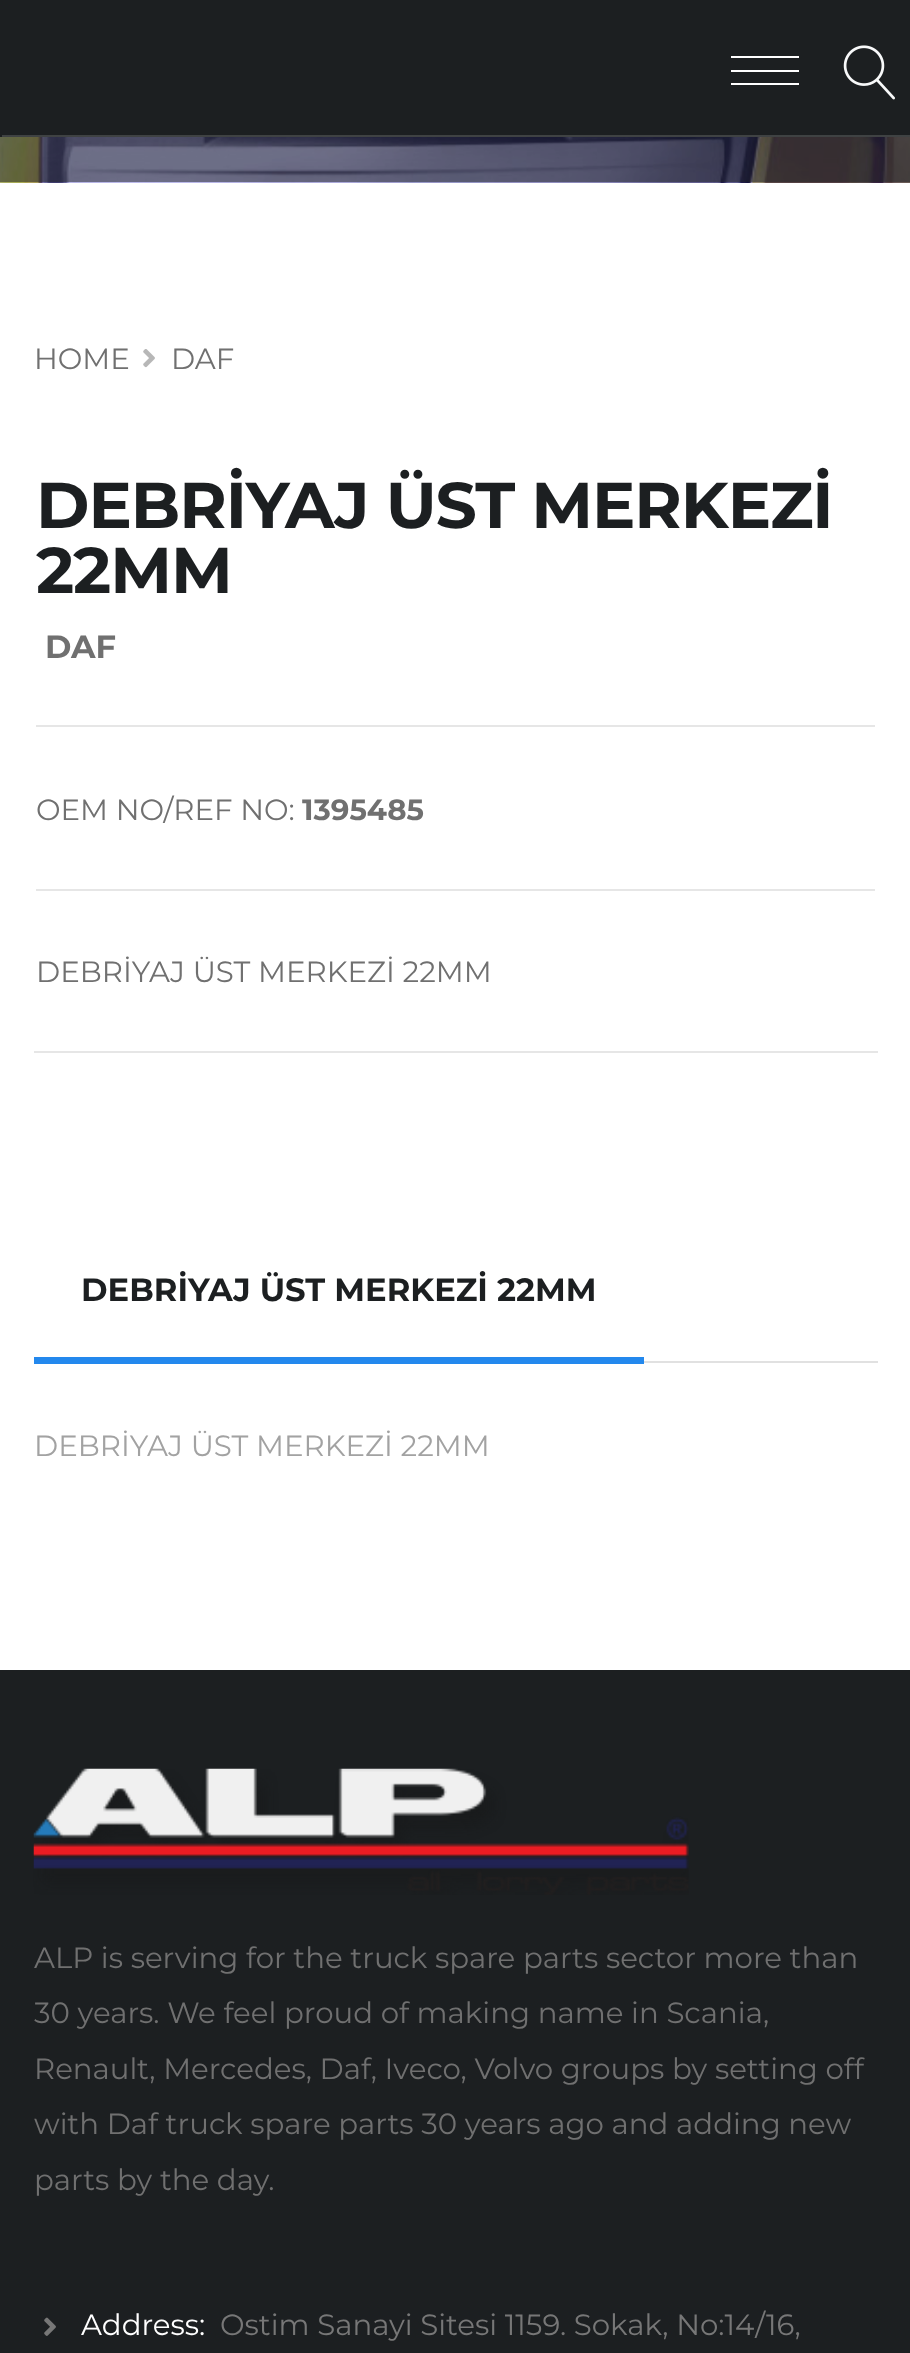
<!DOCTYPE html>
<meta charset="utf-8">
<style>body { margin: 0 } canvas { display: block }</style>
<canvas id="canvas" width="910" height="2353"></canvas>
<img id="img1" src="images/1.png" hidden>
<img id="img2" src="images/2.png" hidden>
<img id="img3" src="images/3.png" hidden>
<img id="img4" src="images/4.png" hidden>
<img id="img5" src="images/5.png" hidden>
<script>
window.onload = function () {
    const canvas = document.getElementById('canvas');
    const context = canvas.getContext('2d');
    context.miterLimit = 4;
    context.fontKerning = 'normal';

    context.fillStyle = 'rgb(255, 255, 255)';
    context.fillRect(0, 0, 910, 2353);
    context.fillStyle = 'rgb(28, 31, 33)';
    context.fillRect(0, 0, 910, 137);
    context.fillStyle = 'rgb(255, 255, 255)';
    context.fillRect(731, 56, 68, 2);
    context.fillRect(731, 70, 68, 2);
    context.fillRect(731, 83, 68, 2);
    context.drawImage(document.getElementById('img1'), 843, 45, 52, 55);
    context.fillStyle = 'rgb(63, 66, 67)';
    context.fillRect(2, 135, 908, 2);
    context.drawImage(document.getElementById('img2'), 0, 137, 910, 46);
    context.drawImage(document.getElementById('img3'), 143, 349, 12, 19);
    context.fillStyle = 'rgb(230, 230, 230)';
    context.fillRect(36, 725, 839, 2);
    context.fillRect(36, 889, 839, 2);
    context.fillRect(34, 1051, 844, 2);
    context.fillStyle = 'rgb(225, 225, 225)';
    context.fillRect(644, 1361, 234, 2);
    context.fillStyle = 'rgb(35, 136, 237)';
    context.fillRect(34, 1357, 610, 7);
    context.fillStyle = 'rgb(28, 31, 33)';
    context.fillRect(0, 1670, 910, 683);
    context.drawImage(document.getElementById('img4'), 33, 1768, 656, 127);
    context.drawImage(document.getElementById('img5'), 44, 2317, 12, 19);
    context.font = '29.25px Montserrat';
    context.fillStyle = 'rgb(112, 112, 112)';
    context.fillText('HOME', 34, 369);
    context.fillText('DAF', 171, 369);
    context.letterSpacing = '-1.1px';
    context.font = 'bold 64.75px Montserrat';
    context.fillStyle = 'rgb(28, 31, 33)';
    context.fillText('DEBRİYAJ ÜST MERKEZİ', 36, 528);
    context.fillText('22MM', 36, 593);
    context.letterSpacing = '0px';
    context.font = 'bold 32px Montserrat';
    context.fillStyle = 'rgb(112, 112, 112)';
    context.fillText('DAF', 45, 658);
    context.font = '29.25px Montserrat';
    context.fillText('OEM NO/REF NO:', 36, 820);
    context.font = 'bold 29.25px Montserrat';
    context.fillText('1395485', 302, 820);
    context.font = '29.25px Montserrat';
    context.fillText('DEBRİYAJ ÜST MERKEZİ 22MM', 36, 982);
    context.font = 'bold 32.2px Montserrat';
    context.fillStyle = 'rgb(28, 31, 33)';
    context.fillText('DEBRİYAJ ÜST MERKEZİ 22MM', 81, 1301);
    context.font = '29.25px Montserrat';
    context.fillStyle = 'rgb(162, 162, 162)';
    context.fillText('DEBRİYAJ ÜST MERKEZİ 22MM', 34, 1456);
    context.fillStyle = 'rgb(112, 112, 112)';
    context.fillText('ALP is serving for the truck spare parts sector more than', 34, 1968);
    context.fillText('30 years. We feel proud of making name in Scania,', 34, 2023);
    context.fillText('Renault, Mercedes, Daf, Iveco, Volvo groups by setting off', 34, 2079);
    context.fillText('with Daf truck spare parts 30 years ago and adding new', 34, 2134);
    context.fillText('parts by the day.', 34, 2190);
    context.fillStyle = 'rgb(255, 255, 255)';
    context.fillText('Address:', 81, 2335);
    context.fillStyle = 'rgb(119, 119, 119)';
    context.fillText('Ostim Sanayi Sitesi 1159. Sokak, No:14/16,', 220, 2335);
};
</script>
